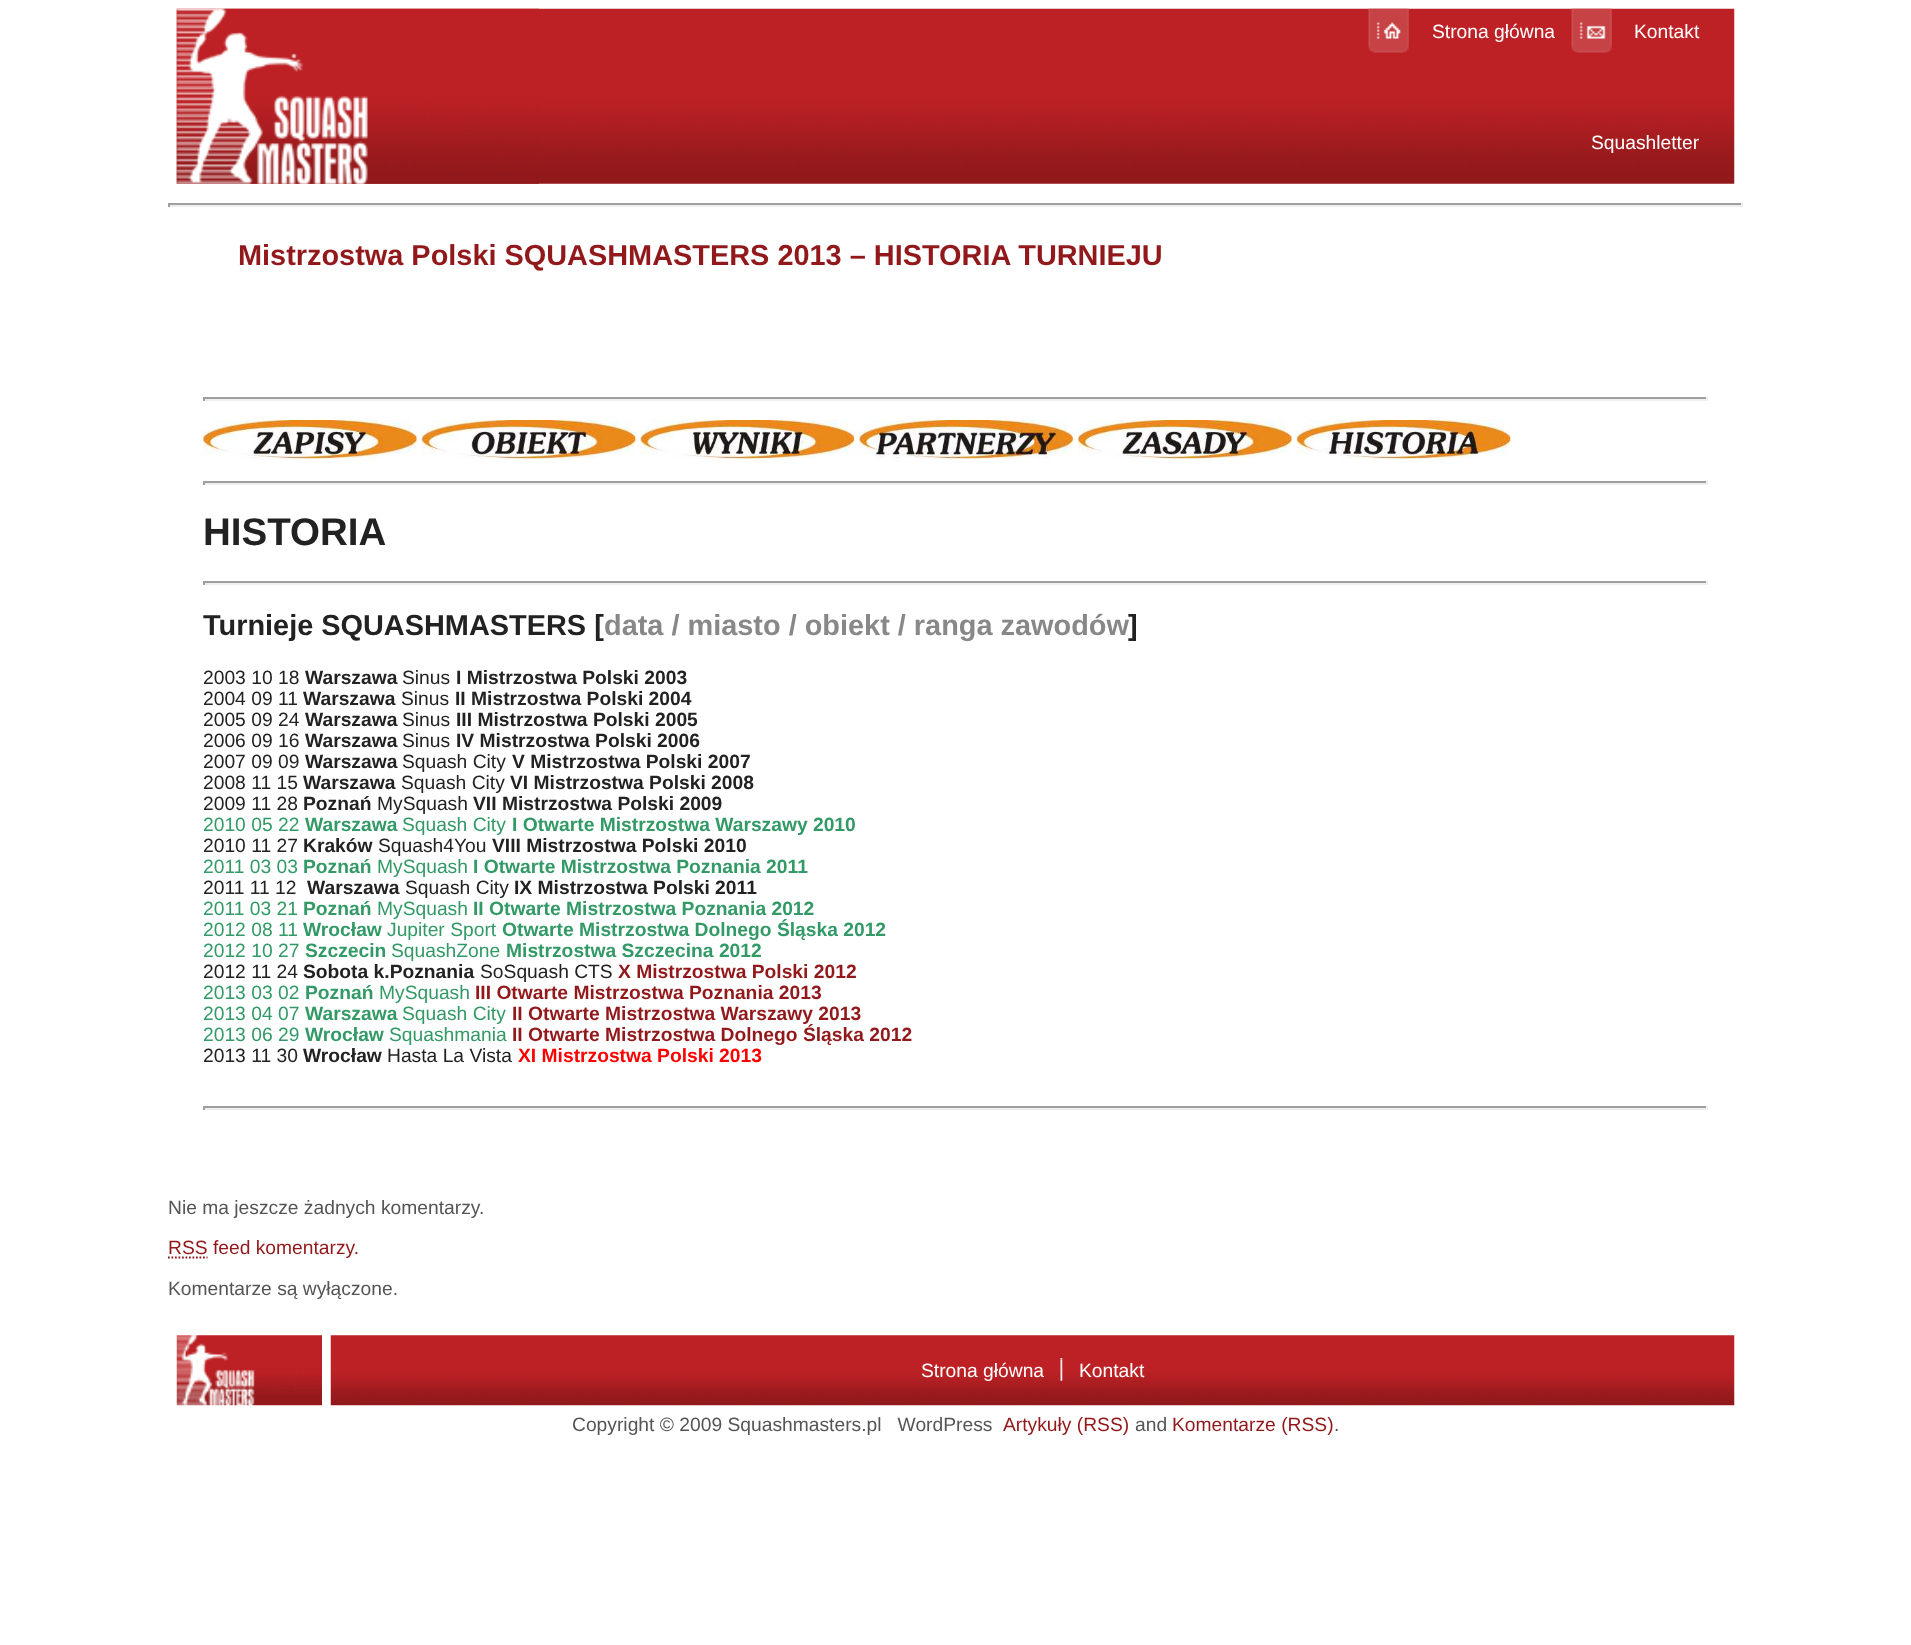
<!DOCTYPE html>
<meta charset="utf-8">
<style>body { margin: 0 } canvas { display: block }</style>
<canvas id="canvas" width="1911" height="1645"></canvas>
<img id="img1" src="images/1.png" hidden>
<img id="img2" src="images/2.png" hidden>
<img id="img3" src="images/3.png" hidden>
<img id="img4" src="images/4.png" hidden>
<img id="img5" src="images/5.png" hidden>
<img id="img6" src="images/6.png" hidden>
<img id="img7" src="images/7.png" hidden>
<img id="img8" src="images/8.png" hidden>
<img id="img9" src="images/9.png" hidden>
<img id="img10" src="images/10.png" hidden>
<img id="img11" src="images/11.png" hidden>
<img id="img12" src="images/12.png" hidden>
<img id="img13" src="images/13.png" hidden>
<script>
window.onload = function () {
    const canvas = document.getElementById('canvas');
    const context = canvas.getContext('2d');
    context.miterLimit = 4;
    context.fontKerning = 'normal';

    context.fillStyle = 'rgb(255, 255, 255)';
    context.fillRect(0, 0, 1911, 1645);
    context.drawImage(document.getElementById('img1'), 176, 8, 1559, 176);
    context.drawImage(document.getElementById('img2'), 176, 8, 363, 176);
    context.drawImage(document.getElementById('img3'), 1368, 8, 41, 45);
    context.drawImage(document.getElementById('img4'), 1571, 8, 41, 45);
    context.fillStyle = 'rgb(159, 159, 159)';
    context.fillRect(168, 203, 1575, 2);
    context.fillStyle = 'rgb(238, 238, 238)';
    context.fillRect(1741, 203, 2, 4);
    context.fillRect(168, 205, 1575, 2);
    context.fillStyle = 'rgb(159, 159, 159)';
    context.fillRect(168, 203, 2, 4);
    context.fillRect(203, 397, 1505, 2);
    context.fillStyle = 'rgb(238, 238, 238)';
    context.fillRect(1706, 397, 2, 4);
    context.fillRect(203, 399, 1505, 2);
    context.fillStyle = 'rgb(159, 159, 159)';
    context.fillRect(203, 397, 2, 4);
    context.drawImage(document.getElementById('img5'), 203, 420, 214, 39);
    context.drawImage(document.getElementById('img6'), 421, 420, 215, 39);
    context.drawImage(document.getElementById('img7'), 640, 420, 214, 39);
    context.drawImage(document.getElementById('img8'), 859, 420, 214, 39);
    context.drawImage(document.getElementById('img9'), 1078, 420, 214, 39);
    context.drawImage(document.getElementById('img10'), 1296, 420, 215, 39);
    context.fillRect(203, 481, 1505, 2);
    context.fillStyle = 'rgb(238, 238, 238)';
    context.fillRect(1706, 481, 2, 4);
    context.fillRect(203, 483, 1505, 2);
    context.fillStyle = 'rgb(159, 159, 159)';
    context.fillRect(203, 481, 2, 4);
    context.fillRect(203, 581, 1505, 2);
    context.fillStyle = 'rgb(238, 238, 238)';
    context.fillRect(1706, 581, 2, 4);
    context.fillRect(203, 583, 1505, 2);
    context.fillStyle = 'rgb(159, 159, 159)';
    context.fillRect(203, 581, 2, 4);
    context.fillRect(203, 1106, 1505, 2);
    context.fillStyle = 'rgb(238, 238, 238)';
    context.fillRect(1706, 1106, 2, 4);
    context.fillRect(203, 1108, 1505, 2);
    context.fillStyle = 'rgb(159, 159, 159)';
    context.fillRect(203, 1106, 2, 4);
    context.beginPath();
    context.moveTo(168, 1257.5);
    context.lineTo(207.5, 1257.5);
    context.strokeStyle = 'rgb(146, 25, 27)';
    context.lineWidth = 1.8;
    context.setLineDash([1.75, 1.75]);
    context.stroke();
    context.drawImage(document.getElementById('img11'), 176, 1335, 146, 71);
    context.drawImage(document.getElementById('img12'), 330, 1335, 1405, 71);
    context.drawImage(document.getElementById('img13'), 1060, 1358, 3, 23);
    context.font = '19.25px Liberation Sans';
    context.fillStyle = 'rgb(255, 255, 255)';
    context.fillText('Strona główna', 1432, 38);
    context.fillText('Kontakt', 1634, 38);
    context.fillText('Squashletter', 1591, 149);
    context.font = 'bold 28.9px Liberation Sans';
    context.fillStyle = 'rgb(146, 25, 27)';
    context.fillText('Mistrzostwa Polski SQUASHMASTERS 2013 – HISTORIA TURNIEJU', 238, 265);
    context.font = 'bold 38.5px Liberation Sans';
    context.fillStyle = 'rgb(34, 34, 34)';
    context.fillText('HISTORIA', 203, 545);
    context.font = 'bold 28.9px Liberation Sans';
    context.fillText('Turnieje SQUASHMASTERS [', 203, 635);
    context.fillStyle = 'rgb(136, 136, 136)';
    context.fillText('data / miasto / obiekt / ranga zawodów', 604, 635);
    context.fillStyle = 'rgb(34, 34, 34)';
    context.fillText(']', 1128, 635);
    context.font = '19.25px Liberation Sans';
    context.fillText('2003 10 18', 203, 684);
    context.font = 'bold 19.25px Liberation Sans';
    context.fillText('Warszawa', 305, 684);
    context.font = '19.25px Liberation Sans';
    context.fillText('Sinus', 402, 684);
    context.font = 'bold 19.25px Liberation Sans';
    context.fillText('I Mistrzostwa Polski 2003', 456, 684);
    context.font = '19.25px Liberation Sans';
    context.fillText('2004 09 11', 203, 705);
    context.font = 'bold 19.25px Liberation Sans';
    context.fillText('Warszawa', 303, 705);
    context.font = '19.25px Liberation Sans';
    context.fillText('Sinus', 401, 705);
    context.font = 'bold 19.25px Liberation Sans';
    context.fillText('II Mistrzostwa Polski 2004', 455, 705);
    context.font = '19.25px Liberation Sans';
    context.fillText('2005 09 24', 203, 726);
    context.font = 'bold 19.25px Liberation Sans';
    context.fillText('Warszawa', 305, 726);
    context.font = '19.25px Liberation Sans';
    context.fillText('Sinus', 402, 726);
    context.font = 'bold 19.25px Liberation Sans';
    context.fillText('III Mistrzostwa Polski 2005', 456, 726);
    context.font = '19.25px Liberation Sans';
    context.fillText('2006 09 16', 203, 747);
    context.font = 'bold 19.25px Liberation Sans';
    context.fillText('Warszawa', 305, 747);
    context.font = '19.25px Liberation Sans';
    context.fillText('Sinus', 402, 747);
    context.font = 'bold 19.25px Liberation Sans';
    context.fillText('IV Mistrzostwa Polski 2006', 456, 747);
    context.font = '19.25px Liberation Sans';
    context.fillText('2007 09 09', 203, 768);
    context.font = 'bold 19.25px Liberation Sans';
    context.fillText('Warszawa', 305, 768);
    context.font = '19.25px Liberation Sans';
    context.fillText('Squash City', 402, 768);
    context.font = 'bold 19.25px Liberation Sans';
    context.fillText('V Mistrzostwa Polski 2007', 512, 768);
    context.font = '19.25px Liberation Sans';
    context.fillText('2008 11 15', 203, 789);
    context.font = 'bold 19.25px Liberation Sans';
    context.fillText('Warszawa', 303, 789);
    context.font = '19.25px Liberation Sans';
    context.fillText('Squash City', 401, 789);
    context.font = 'bold 19.25px Liberation Sans';
    context.fillText('VI Mistrzostwa Polski 2008', 510, 789);
    context.font = '19.25px Liberation Sans';
    context.fillText('2009 11 28', 203, 810);
    context.font = 'bold 19.25px Liberation Sans';
    context.fillText('Poznań', 303, 810);
    context.font = '19.25px Liberation Sans';
    context.fillText('MySquash', 377, 810);
    context.font = 'bold 19.25px Liberation Sans';
    context.fillText('VII Mistrzostwa Polski 2009', 473, 810);
    context.font = '19.25px Liberation Sans';
    context.fillStyle = 'rgb(51, 153, 102)';
    context.fillText('2010 05 22', 203, 831);
    context.font = 'bold 19.25px Liberation Sans';
    context.fillText('Warszawa', 305, 831);
    context.font = '19.25px Liberation Sans';
    context.fillText('Squash City', 402, 831);
    context.font = 'bold 19.25px Liberation Sans';
    context.fillText('I Otwarte Mistrzostwa Warszawy 2010', 512, 831);
    context.font = '19.25px Liberation Sans';
    context.fillStyle = 'rgb(34, 34, 34)';
    context.fillText('2010 11 27', 203, 852);
    context.font = 'bold 19.25px Liberation Sans';
    context.fillText('Kraków', 303, 852);
    context.font = '19.25px Liberation Sans';
    context.fillText('Squash4You', 378, 852);
    context.font = 'bold 19.25px Liberation Sans';
    context.fillText('VIII Mistrzostwa Polski 2010', 492, 852);
    context.font = '19.25px Liberation Sans';
    context.fillStyle = 'rgb(51, 153, 102)';
    context.fillText('2011 03 03', 203, 873);
    context.font = 'bold 19.25px Liberation Sans';
    context.fillText('Poznań', 303, 873);
    context.font = '19.25px Liberation Sans';
    context.fillText('MySquash', 377, 873);
    context.font = 'bold 19.25px Liberation Sans';
    context.fillText('I Otwarte Mistrzostwa Poznania 2011', 473, 873);
    context.font = '19.25px Liberation Sans';
    context.fillStyle = 'rgb(34, 34, 34)';
    context.fillText('2011 11 12', 203, 894);
    context.font = 'bold 19.25px Liberation Sans';
    context.fillText('Warszawa', 307, 894);
    context.font = '19.25px Liberation Sans';
    context.fillText('Squash City', 405, 894);
    context.font = 'bold 19.25px Liberation Sans';
    context.fillText('IX Mistrzostwa Polski 2011', 514, 894);
    context.font = '19.25px Liberation Sans';
    context.fillStyle = 'rgb(51, 153, 102)';
    context.fillText('2011 03 21', 203, 915);
    context.font = 'bold 19.25px Liberation Sans';
    context.fillText('Poznań', 303, 915);
    context.font = '19.25px Liberation Sans';
    context.fillText('MySquash', 377, 915);
    context.font = 'bold 19.25px Liberation Sans';
    context.fillText('II Otwarte Mistrzostwa Poznania 2012', 473, 915);
    context.font = '19.25px Liberation Sans';
    context.fillText('2012 08 11', 203, 936);
    context.font = 'bold 19.25px Liberation Sans';
    context.fillText('Wrocław', 303, 936);
    context.font = '19.25px Liberation Sans';
    context.fillText('Jupiter Sport', 387, 936);
    context.font = 'bold 19.25px Liberation Sans';
    context.fillText('Otwarte Mistrzostwa Dolnego Śląska 2012', 502, 936);
    context.font = '19.25px Liberation Sans';
    context.fillText('2012 10 27', 203, 957);
    context.font = 'bold 19.25px Liberation Sans';
    context.fillText('Szczecin', 305, 957);
    context.font = '19.25px Liberation Sans';
    context.fillText('SquashZone', 391, 957);
    context.font = 'bold 19.25px Liberation Sans';
    context.fillText('Mistrzostwa Szczecina 2012', 506, 957);
    context.font = '19.25px Liberation Sans';
    context.fillStyle = 'rgb(34, 34, 34)';
    context.fillText('2012 11 24', 203, 978);
    context.font = 'bold 19.25px Liberation Sans';
    context.fillText('Sobota k.Poznania', 303, 978);
    context.font = '19.25px Liberation Sans';
    context.fillText('SoSquash CTS', 480, 978);
    context.font = 'bold 19.25px Liberation Sans';
    context.fillStyle = 'rgb(146, 25, 27)';
    context.fillText('X Mistrzostwa Polski 2012', 618, 978);
    context.font = '19.25px Liberation Sans';
    context.fillStyle = 'rgb(51, 153, 102)';
    context.fillText('2013 03 02', 203, 999);
    context.font = 'bold 19.25px Liberation Sans';
    context.fillText('Poznań', 305, 999);
    context.font = '19.25px Liberation Sans';
    context.fillText('MySquash', 379, 999);
    context.font = 'bold 19.25px Liberation Sans';
    context.fillStyle = 'rgb(146, 25, 27)';
    context.fillText('III Otwarte Mistrzostwa Poznania 2013', 475, 999);
    context.font = '19.25px Liberation Sans';
    context.fillStyle = 'rgb(51, 153, 102)';
    context.fillText('2013 04 07', 203, 1020);
    context.font = 'bold 19.25px Liberation Sans';
    context.fillText('Warszawa', 305, 1020);
    context.font = '19.25px Liberation Sans';
    context.fillText('Squash City', 402, 1020);
    context.font = 'bold 19.25px Liberation Sans';
    context.fillStyle = 'rgb(146, 25, 27)';
    context.fillText('II Otwarte Mistrzostwa Warszawy 2013', 512, 1020);
    context.font = '19.25px Liberation Sans';
    context.fillStyle = 'rgb(51, 153, 102)';
    context.fillText('2013 06 29', 203, 1041);
    context.font = 'bold 19.25px Liberation Sans';
    context.fillText('Wrocław', 305, 1041);
    context.font = '19.25px Liberation Sans';
    context.fillText('Squashmania', 389, 1041);
    context.font = 'bold 19.25px Liberation Sans';
    context.fillStyle = 'rgb(146, 25, 27)';
    context.fillText('II Otwarte Mistrzostwa Dolnego Śląska 2012', 512, 1041);
    context.font = '19.25px Liberation Sans';
    context.fillStyle = 'rgb(34, 34, 34)';
    context.fillText('2013 11 30', 203, 1062);
    context.font = 'bold 19.25px Liberation Sans';
    context.fillText('Wrocław', 303, 1062);
    context.font = '19.25px Liberation Sans';
    context.fillText('Hasta La Vista', 387, 1062);
    context.font = 'bold 19.25px Liberation Sans';
    context.fillStyle = 'rgb(255, 0, 0)';
    context.fillText('XI Mistrzostwa Polski 2013', 518, 1062);
    context.font = '19.25px Liberation Sans';
    context.fillStyle = 'rgb(85, 85, 85)';
    context.fillText('Nie ma jeszcze żadnych komentarzy.', 168, 1214);
    context.fillStyle = 'rgb(146, 25, 27)';
    context.fillText('RSS feed komentarzy.', 168, 1254);
    context.fillStyle = 'rgb(85, 85, 85)';
    context.fillText('Komentarze są wyłączone.', 168, 1295);
    context.fillStyle = 'rgb(255, 255, 255)';
    context.fillText('Strona główna', 921, 1377);
    context.fillText('Kontakt', 1079, 1377);
    context.fillStyle = 'rgb(85, 85, 85)';
    context.fillText('Copyright © 2009 Squashmasters.pl   WordPress', 572, 1431);
    context.fillStyle = 'rgb(146, 25, 27)';
    context.fillText('Artykuły (RSS)', 1003, 1431);
    context.fillStyle = 'rgb(85, 85, 85)';
    context.fillText('and', 1135, 1431);
    context.fillStyle = 'rgb(146, 25, 27)';
    context.fillText('Komentarze (RSS)', 1172, 1431);
    context.fillStyle = 'rgb(85, 85, 85)';
    context.fillText('.', 1334, 1431);
};
</script>
